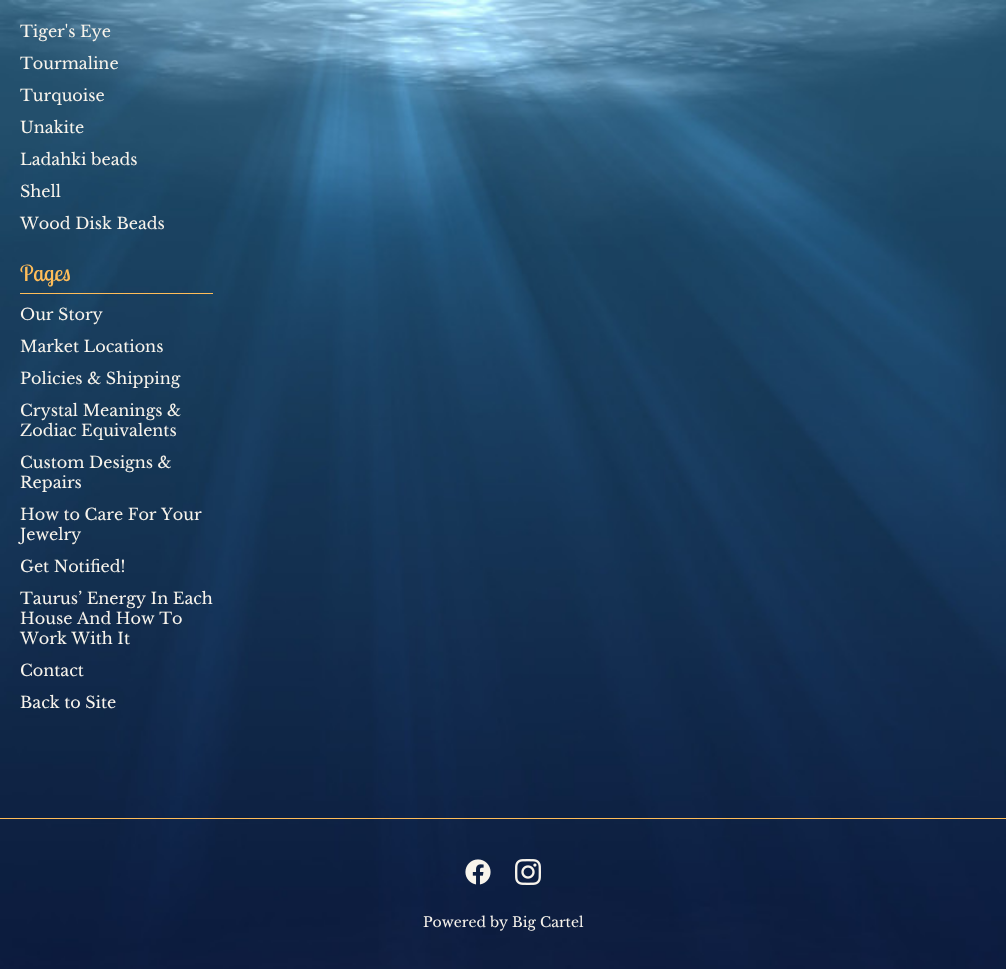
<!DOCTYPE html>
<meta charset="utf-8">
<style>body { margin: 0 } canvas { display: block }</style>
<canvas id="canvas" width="1006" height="969"></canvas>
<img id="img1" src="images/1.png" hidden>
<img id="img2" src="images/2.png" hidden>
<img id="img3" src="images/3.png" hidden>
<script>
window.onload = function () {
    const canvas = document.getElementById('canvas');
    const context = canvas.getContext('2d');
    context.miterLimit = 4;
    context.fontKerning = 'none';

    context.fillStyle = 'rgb(255, 255, 255)';
    context.fillRect(0, 0, 1006, 969);
    context.drawImage(document.getElementById('img1'), 0, 0, 1006, 969);
    context.fillStyle = 'rgb(255, 189, 89)';
    context.fillRect(20, 293, 193, 1);
    context.fillRect(0, 818, 1006, 1);
    context.drawImage(document.getElementById('img2'), 465, 859, 26, 26);
    context.drawImage(document.getElementById('img3'), 515, 859, 26, 26);
    context.font = '16px Libre Baskerville';
    context.fillStyle = 'rgb(248, 244, 236)';
    context.fillText('Tiger\'s Eye', 20, 37);
    context.fillText('Tourmaline', 20, 69);
    context.fillText('Turquoise', 20, 101);
    context.fillText('Unakite', 20, 133);
    context.fillText('Ladahki beads', 20, 165);
    context.fillText('Shell', 20, 197);
    context.fillText('Wood Disk Beads', 20, 229);
    context.font = '22px Lobster Two';
    context.fillStyle = 'rgb(255, 189, 89)';
    context.fillText('Pages', 20, 281);
    context.font = '16px Libre Baskerville';
    context.fillStyle = 'rgb(248, 244, 236)';
    context.fillText('Our Story', 20, 320);
    context.fillText('Market Locations', 20, 352);
    context.fillText('Policies & Shipping', 20, 384);
    context.fillText('Crystal Meanings &', 20, 416);
    context.fillText('Zodiac Equivalents', 20, 436);
    context.fillText('Custom Designs &', 20, 468);
    context.fillText('Repairs', 20, 488);
    context.fillText('How to Care For Your', 20, 520);
    context.fillText('Jewelry', 20, 540);
    context.fillText('Get Notified!', 20, 572);
    context.fillText('Taurus’ Energy In Each', 20, 604);
    context.fillText('House And How To', 20, 624);
    context.fillText('Work With It', 20, 644);
    context.fillText('Contact', 20, 676);
    context.fillText('Back to Site', 20, 708);
    context.font = '14px Libre Baskerville';
    context.fillText('Powered by Big Cartel', 423, 927);
};
</script>
